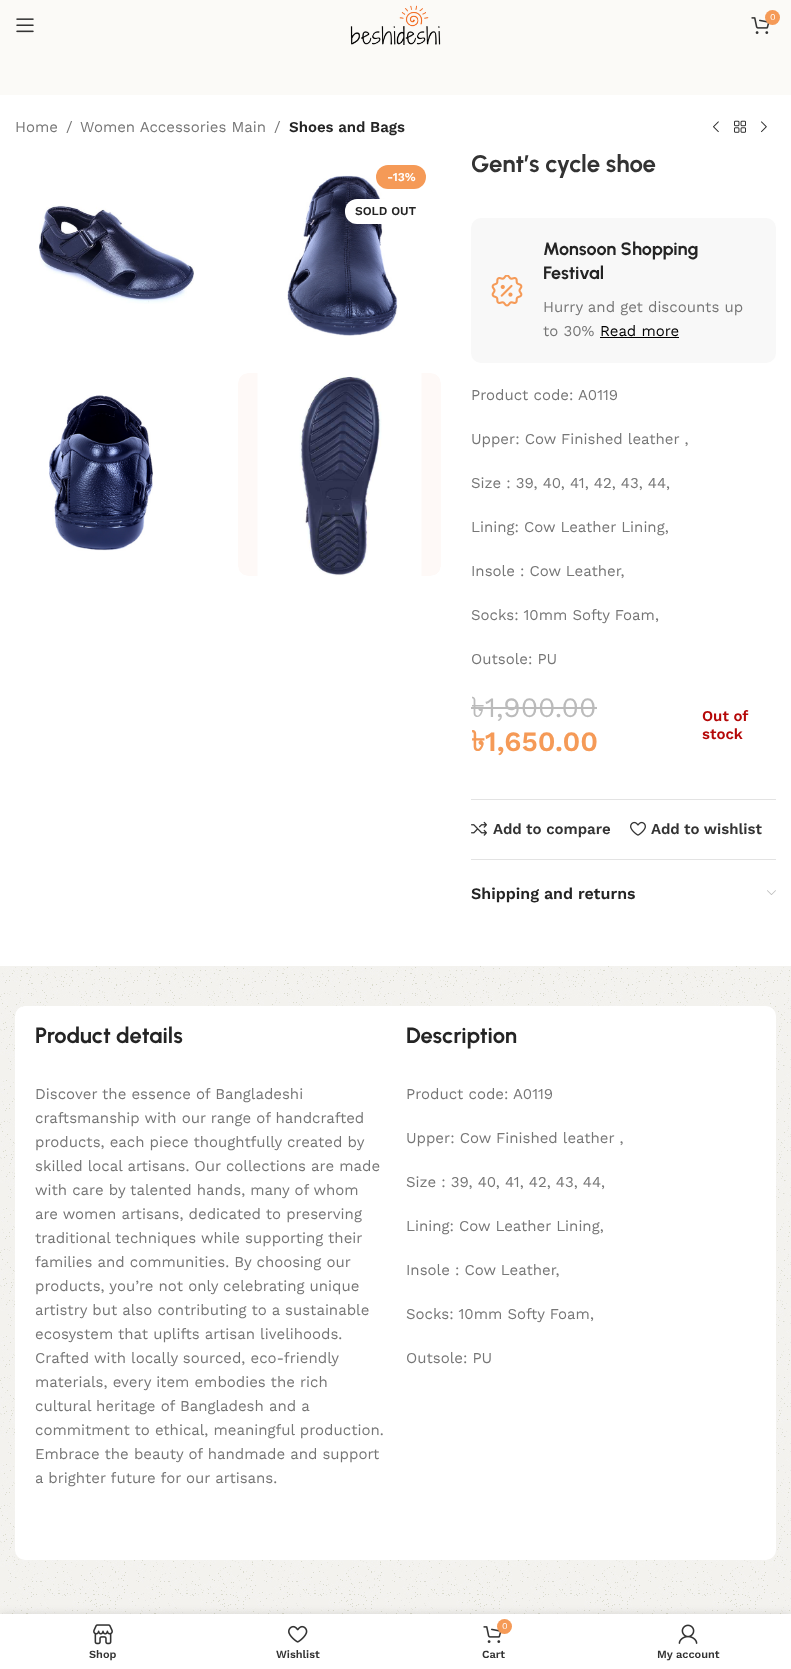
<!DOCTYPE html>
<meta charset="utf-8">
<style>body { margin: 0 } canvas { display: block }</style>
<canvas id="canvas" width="791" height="1669"></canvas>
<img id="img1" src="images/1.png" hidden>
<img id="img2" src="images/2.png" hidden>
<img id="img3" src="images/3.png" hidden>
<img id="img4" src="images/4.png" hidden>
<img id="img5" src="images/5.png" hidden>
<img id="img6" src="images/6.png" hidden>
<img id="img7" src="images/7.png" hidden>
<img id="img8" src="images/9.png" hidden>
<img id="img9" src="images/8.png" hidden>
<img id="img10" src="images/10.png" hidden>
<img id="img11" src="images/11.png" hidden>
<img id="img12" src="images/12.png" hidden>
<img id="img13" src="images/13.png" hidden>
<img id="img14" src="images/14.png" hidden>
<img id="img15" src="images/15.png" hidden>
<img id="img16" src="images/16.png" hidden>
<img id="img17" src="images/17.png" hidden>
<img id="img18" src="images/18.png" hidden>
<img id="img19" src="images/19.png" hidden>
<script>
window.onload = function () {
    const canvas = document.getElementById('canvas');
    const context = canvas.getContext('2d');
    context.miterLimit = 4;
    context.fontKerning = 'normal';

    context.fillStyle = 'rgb(255, 255, 255)';
    context.fillRect(0, 0, 791, 1669);
    context.fillStyle = 'rgb(251, 250, 247)';
    context.fillRect(0, 0, 791, 95);
    context.drawImage(document.getElementById('img1'), 16, 18, 18, 15);
    context.drawImage(document.getElementById('img2'), 350, 5, 91, 40);
    context.drawImage(document.getElementById('img3'), 751, 17, 19, 17);
    context.fillStyle = 'rgb(245, 154, 87)';
    context.beginPath();
    context.arc(772.5, 17.5, 7.5, 0, 2 * Math.PI);
    context.fill();
    context.drawImage(document.getElementById('img4'), 0, 966, 791, 648);
    context.drawImage(document.getElementById('img5'), 713, 121, 6, 12);
    context.drawImage(document.getElementById('img6'), 734, 120, 12, 13);
    context.drawImage(document.getElementById('img7'), 761, 121, 6, 12);
    context.drawImage(document.getElementById('img8'), 287, 175, 111, 161);
    context.beginPath();
    context.roundRect(376, 165, 50, 24, 12);
    context.fill();
    context.fillStyle = 'rgb(255, 255, 255)';
    context.beginPath();
    context.roundRect(345, 199, 81, 25, 12);
    context.fill();
    context.drawImage(document.getElementById('img9'), 39, 205, 156, 99);
    context.drawImage(document.getElementById('img10'), 49, 395, 104, 156);
    context.drawImage(document.getElementById('img11'), 238, 373, 203, 203);
    context.fillStyle = 'rgb(248, 248, 248)';
    context.beginPath();
    context.roundRect(471, 218, 305, 145, 10);
    context.fill();
    context.drawImage(document.getElementById('img12'), 491, 275, 32, 32);
    context.fillStyle = 'rgb(0, 0, 0)';
    context.fillRect(600, 337, 79, 1);
    context.fillStyle = 'rgb(187, 187, 187)';
    context.fillRect(471, 707, 14, 2);
    context.fillRect(485, 707, 112, 2);
    context.fillStyle = 'rgb(227, 227, 227)';
    context.fillRect(471, 799, 305, 1);
    context.drawImage(document.getElementById('img13'), 471, 821, 16, 15);
    context.drawImage(document.getElementById('img14'), 630, 821, 16, 15);
    context.fillRect(471, 859, 305, 1);
    context.drawImage(document.getElementById('img15'), 767, 890, 9, 5);
    context.fillStyle = 'rgb(255, 255, 255)';
    context.beginPath();
    context.roundRect(15, 1006, 761, 554, 10);
    context.fill();
    context.fillStyle = 'rgba(0, 0, 0, 0.12)';
    context.filter = 'blur(4.5px)';
    context.beginPath();
    context.rect(0, 1614, 791, 55);
    context.fill();
    context.filter = 'none';
    context.fillStyle = 'rgb(255, 255, 255)';
    context.fillRect(0, 1614, 791, 55);
    context.drawImage(document.getElementById('img16'), 93, 1624, 20, 21);
    context.drawImage(document.getElementById('img17'), 288, 1625, 20, 18);
    context.drawImage(document.getElementById('img18'), 483, 1626, 19, 17);
    context.fillStyle = 'rgb(245, 154, 87)';
    context.beginPath();
    context.arc(504.5, 1626.5, 7.5, 0, 2 * Math.PI);
    context.fill();
    context.drawImage(document.getElementById('img19'), 678, 1624, 20, 20);
    context.font = '9px Work Sans';
    context.fillStyle = 'rgb(255, 255, 255)';
    context.fillText('0', 770, 20);
    context.font = '15px Work Sans';
    context.fillStyle = 'rgb(118, 118, 118)';
    context.fillText('Home', 15, 132);
    context.fillText('/', 66, 132);
    context.fillText('Women Accessories Main', 80, 132);
    context.fillText('/', 274, 132);
    context.font = '600 15px Work Sans';
    context.fillStyle = 'rgb(36, 36, 36)';
    context.fillText('Shoes and Bags', 289, 132);
    context.font = '600 12px Work Sans';
    context.fillStyle = 'rgb(255, 255, 255)';
    context.fillText('-13%', 387, 181);
    context.fillStyle = 'rgb(36, 36, 36)';
    context.fillText('SOLD OUT', 355, 215);
    context.font = 'bold 24px Urbanist';
    context.fillStyle = 'rgb(51, 51, 51)';
    context.fillText('Gent’s cycle shoe', 471, 172);
    context.font = 'bold 18px Urbanist';
    context.fillStyle = 'rgb(36, 36, 36)';
    context.fillText('Monsoon Shopping', 543, 255);
    context.fillText('Festival', 543, 279);
    context.font = '15px Work Sans';
    context.fillStyle = 'rgb(118, 118, 118)';
    context.fillText('Hurry and get discounts up', 543, 312);
    context.fillText('to 30%', 543, 336);
    context.fillStyle = 'rgb(0, 0, 0)';
    context.fillText('Read more', 600, 336);
    context.fillStyle = 'rgb(118, 118, 118)';
    context.fillText('Product code: A0119', 471, 400);
    context.fillText('Upper: Cow Finished leather ,', 471, 444);
    context.fillText('Size : 39, 40, 41, 42, 43, 44,', 471, 488);
    context.fillText('Lining: Cow Leather Lining,', 471, 532);
    context.fillText('Insole : Cow Leather,', 471, 576);
    context.fillText('Socks: 10mm Softy Foam,', 471, 620);
    context.fillText('Outsole: PU', 471, 664);
    context.font = '28px Lohit Bengali';
    context.fillStyle = 'rgb(187, 187, 187)';
    context.fillText('৳', 471, 717);
    context.font = '28px Work Sans';
    context.fillText('1,900.00', 485, 717);
    context.font = 'bold 28px Lohit Bengali';
    context.fillStyle = 'rgb(245, 154, 87)';
    context.fillText('৳', 471, 751);
    context.font = '600 28px Work Sans';
    context.fillText('1,650.00', 485, 751);
    context.font = '600 15px Work Sans';
    context.fillStyle = 'rgb(181, 8, 8)';
    context.fillText('Out of', 702, 721);
    context.fillText('stock', 702, 739);
    context.fillStyle = 'rgb(51, 51, 51)';
    context.fillText('Add to compare', 493, 834);
    context.fillText('Add to wishlist', 651, 834);
    context.font = '600 16px Work Sans';
    context.fillStyle = 'rgb(36, 36, 36)';
    context.fillText('Shipping and returns', 471, 899);
    context.font = 'bold 22px Urbanist';
    context.fillText('Product details', 35, 1043);
    context.font = '15px Work Sans';
    context.fillStyle = 'rgb(118, 118, 118)';
    context.fillText('Discover the essence of Bangladeshi', 35, 1099);
    context.fillText('craftsmanship with our range of handcrafted', 35, 1123);
    context.fillText('products, each piece thoughtfully created by', 35, 1147);
    context.fillText('skilled local artisans. Our collections are made', 35, 1171);
    context.fillText('with care by talented hands, many of whom', 35, 1195);
    context.fillText('are women artisans, dedicated to preserving', 35, 1219);
    context.fillText('traditional techniques while supporting their', 35, 1243);
    context.fillText('families and communities. By choosing our', 35, 1267);
    context.fillText('products, you’re not only celebrating unique', 35, 1291);
    context.fillText('artistry but also contributing to a sustainable', 35, 1315);
    context.fillText('ecosystem that uplifts artisan livelihoods.', 35, 1339);
    context.fillText('Crafted with locally sourced, eco-friendly', 35, 1363);
    context.fillText('materials, every item embodies the rich', 35, 1387);
    context.fillText('cultural heritage of Bangladesh and a', 35, 1411);
    context.fillText('commitment to ethical, meaningful production.', 35, 1435);
    context.fillText('Embrace the beauty of handmade and support', 35, 1459);
    context.fillText('a brighter future for our artisans.', 35, 1483);
    context.font = 'bold 22px Urbanist';
    context.fillStyle = 'rgb(36, 36, 36)';
    context.fillText('Description', 406, 1043);
    context.font = '15px Work Sans';
    context.fillStyle = 'rgb(118, 118, 118)';
    context.fillText('Product code: A0119', 406, 1099);
    context.fillText('Upper: Cow Finished leather ,', 406, 1143);
    context.fillText('Size : 39, 40, 41, 42, 43, 44,', 406, 1187);
    context.fillText('Lining: Cow Leather Lining,', 406, 1231);
    context.fillText('Insole : Cow Leather,', 406, 1275);
    context.fillText('Socks: 10mm Softy Foam,', 406, 1319);
    context.fillText('Outsole: PU', 406, 1363);
    context.font = '600 11px Work Sans';
    context.fillStyle = 'rgb(51, 51, 51)';
    context.fillText('Shop', 89, 1658);
    context.fillText('Wishlist', 276, 1658);
    context.font = '9px Work Sans';
    context.fillStyle = 'rgb(255, 255, 255)';
    context.fillText('0', 502, 1629);
    context.font = '600 11px Work Sans';
    context.fillStyle = 'rgb(51, 51, 51)';
    context.fillText('Cart', 482, 1658);
    context.fillText('My account', 657, 1658);
};
</script>
